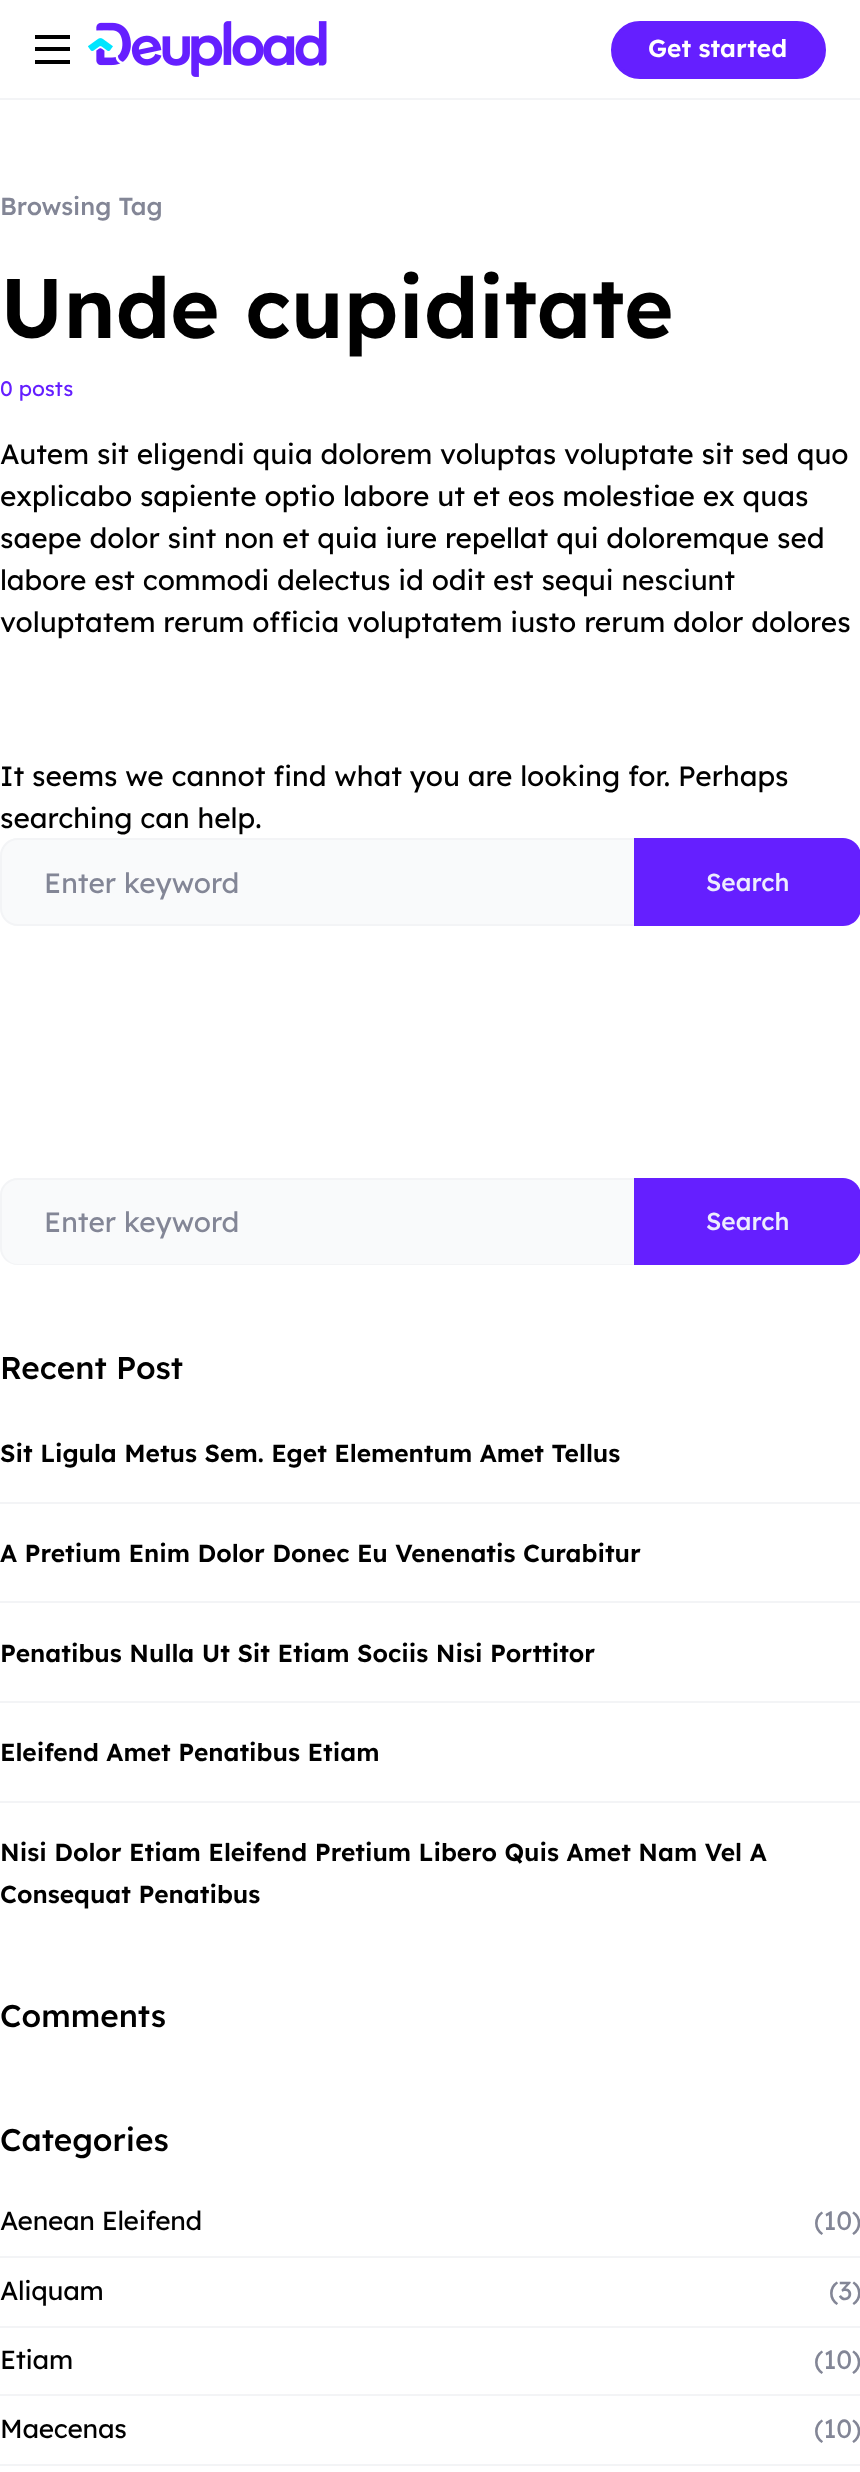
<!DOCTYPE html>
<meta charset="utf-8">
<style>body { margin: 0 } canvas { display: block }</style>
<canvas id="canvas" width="860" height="2472"></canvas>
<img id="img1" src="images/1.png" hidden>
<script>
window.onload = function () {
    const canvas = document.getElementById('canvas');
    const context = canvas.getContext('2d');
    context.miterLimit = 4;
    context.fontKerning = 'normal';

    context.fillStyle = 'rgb(255, 255, 255)';
    context.fillRect(0, 0, 860, 2472);
    context.fillStyle = 'rgb(243, 244, 246)';
    context.fillRect(0, 98, 860, 2);
    context.fillStyle = 'rgb(0, 0, 0)';
    context.fillRect(35, 35, 35, 4);
    context.fillRect(35, 47, 35, 4);
    context.fillRect(35, 60, 35, 4);
    context.drawImage(document.getElementById('img1'), 88, 21, 239, 56);
    context.fillStyle = 'rgb(101, 31, 255)';
    context.beginPath();
    context.roundRect(613, 23, 211, 54, 27);
    context.fill();
    context.strokeStyle = 'rgb(101, 31, 255)';
    context.lineWidth = 4;
    context.stroke();
    context.fillStyle = 'rgb(249, 250, 251)';
    context.beginPath();
    context.roundRect(0, 838, 634, 88, [18, 0, 0, 18]);
    context.fill();
    context.fillStyle = 'rgb(243, 244, 246)';
    context.beginPath();
    context.moveTo(18, 838);
    context.lineTo(634, 838);
    context.lineTo(634, 926);
    context.lineTo(18, 926);
    context.bezierCurveTo(8, 926, 0, 918, 0, 908);
    context.lineTo(0, 856);
    context.bezierCurveTo(0, 846, 8, 838, 18, 838);
    context.closePath();
    context.moveTo(18, 840);
    context.lineTo(634, 840);
    context.lineTo(634, 924);
    context.lineTo(18, 924);
    context.bezierCurveTo(9, 924, 2, 917, 2, 908);
    context.lineTo(2, 856);
    context.bezierCurveTo(2, 847, 9, 840, 18, 840);
    context.closePath();
    context.fill('evenodd');
    context.fillStyle = 'rgb(101, 31, 255)';
    context.beginPath();
    context.moveTo(634, 838);
    context.lineTo(843, 838);
    context.bezierCurveTo(853, 838, 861, 846, 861, 856);
    context.lineTo(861, 908);
    context.bezierCurveTo(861, 918, 853, 926, 843, 926);
    context.lineTo(634, 926);
    context.closePath();
    context.fill();
    context.fillStyle = 'rgb(249, 250, 251)';
    context.beginPath();
    context.roundRect(0, 1178, 634, 87, [18, 0, 0, 18]);
    context.fill();
    context.fillStyle = 'rgb(243, 244, 246)';
    context.beginPath();
    context.moveTo(18, 1178);
    context.lineTo(634, 1178);
    context.lineTo(634, 1265);
    context.lineTo(18, 1265);
    context.bezierCurveTo(8, 1265, 0, 1257, 0, 1248);
    context.lineTo(0, 1195);
    context.bezierCurveTo(0, 1186, 8, 1178, 18, 1178);
    context.closePath();
    context.moveTo(18, 1180);
    context.lineTo(634, 1180);
    context.lineTo(634, 1264);
    context.lineTo(18, 1264);
    context.bezierCurveTo(9, 1264, 2, 1256, 2, 1248);
    context.lineTo(2, 1195);
    context.bezierCurveTo(2, 1187, 9, 1180, 18, 1180);
    context.closePath();
    context.fill('evenodd');
    context.fillStyle = 'rgb(101, 31, 255)';
    context.beginPath();
    context.moveTo(634, 1178);
    context.lineTo(843, 1178);
    context.bezierCurveTo(853, 1178, 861, 1186, 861, 1196);
    context.lineTo(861, 1247);
    context.bezierCurveTo(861, 1257, 853, 1265, 843, 1265);
    context.lineTo(634, 1265);
    context.closePath();
    context.fill();
    context.fillStyle = 'rgb(243, 244, 246)';
    context.fillRect(0, 1502, 860, 2);
    context.fillRect(0, 1601, 860, 2);
    context.fillRect(0, 1701, 860, 2);
    context.fillRect(0, 1801, 860, 2);
    context.fillRect(0, 2256, 860, 2);
    context.fillRect(0, 2326, 860, 2);
    context.fillRect(0, 2394, 860, 2);
    context.fillRect(0, 2464, 860, 2);
    context.font = '600 24.5px Lexend';
    context.fillStyle = 'rgb(255, 255, 255)';
    context.fillText('Get started', 648, 57);
    context.font = '500 24.5px Lexend';
    context.fillStyle = 'rgb(131, 134, 150)';
    context.fillText('Browsing Tag', 0, 215);
    context.font = '600 84px Lexend';
    context.fillStyle = 'rgb(0, 0, 0)';
    context.fillText('Unde cupiditate', 0, 338);
    context.font = '21px Lexend';
    context.fillStyle = 'rgb(101, 31, 255)';
    context.fillText('0 posts', 0, 396);
    context.font = '28px Lexend';
    context.fillStyle = 'rgb(0, 0, 0)';
    context.fillText('Autem sit eligendi quia dolorem voluptas voluptate sit sed quo', 0, 464);
    context.fillText('explicabo sapiente optio labore ut et eos molestiae ex quas', 0, 506);
    context.fillText('saepe dolor sint non et quia iure repellat qui doloremque sed', 0, 548);
    context.fillText('labore est commodi delectus id odit est sequi nesciunt', 0, 590);
    context.fillText('voluptatem rerum officia voluptatem iusto rerum dolor dolores', 0, 632);
    context.fillText('It seems we cannot find what you are looking for. Perhaps', 0, 786);
    context.fillText('searching can help.', 0, 828);
    context.fillStyle = 'rgb(131, 134, 150)';
    context.fillText('Enter keyword', 44, 893);
    context.font = '500 24.5px Lexend';
    context.fillStyle = 'rgb(236, 236, 254)';
    context.fillText('Search', 706, 891);
    context.font = '28px Lexend';
    context.fillStyle = 'rgb(131, 134, 150)';
    context.fillText('Enter keyword', 44, 1232);
    context.font = '500 24.5px Lexend';
    context.fillStyle = 'rgb(236, 236, 254)';
    context.fillText('Search', 706, 1230);
    context.font = '500 31.5px Lexend';
    context.fillStyle = 'rgb(0, 0, 0)';
    context.fillText('Recent Post', 0, 1379);
    context.font = '600 24.5px Lexend';
    context.fillText('Sit Ligula Metus Sem. Eget Elementum Amet Tellus', 0, 1462);
    context.fillText('A Pretium Enim Dolor Donec Eu Venenatis Curabitur', 0, 1562);
    context.fillText('Penatibus Nulla Ut Sit Etiam Sociis Nisi Porttitor', 0, 1662);
    context.fillText('Eleifend Amet Penatibus Etiam', 0, 1761);
    context.fillText('Nisi Dolor Etiam Eleifend Pretium Libero Quis Amet Nam Vel A', 0, 1861);
    context.fillText('Consequat Penatibus', 0, 1903);
    context.font = '500 31.5px Lexend';
    context.fillText('Comments', 0, 2027);
    context.fillText('Categories', 0, 2151);
    context.letterSpacing = '-0.3px';
    context.font = '26.25px Lexend';
    context.fillText('Aenean Eleifend', 0, 2230);
    context.fillStyle = 'rgb(131, 134, 150)';
    context.fillText('(10)', 814, 2230);
    context.fillStyle = 'rgb(0, 0, 0)';
    context.fillText('Aliquam', 0, 2300);
    context.fillStyle = 'rgb(131, 134, 150)';
    context.fillText('(3)', 829, 2300);
    context.fillStyle = 'rgb(0, 0, 0)';
    context.fillText('Etiam', 0, 2369);
    context.fillStyle = 'rgb(131, 134, 150)';
    context.fillText('(10)', 814, 2369);
    context.fillStyle = 'rgb(0, 0, 0)';
    context.fillText('Maecenas', 0, 2438);
    context.fillStyle = 'rgb(131, 134, 150)';
    context.fillText('(10)', 814, 2438);
};
</script>
